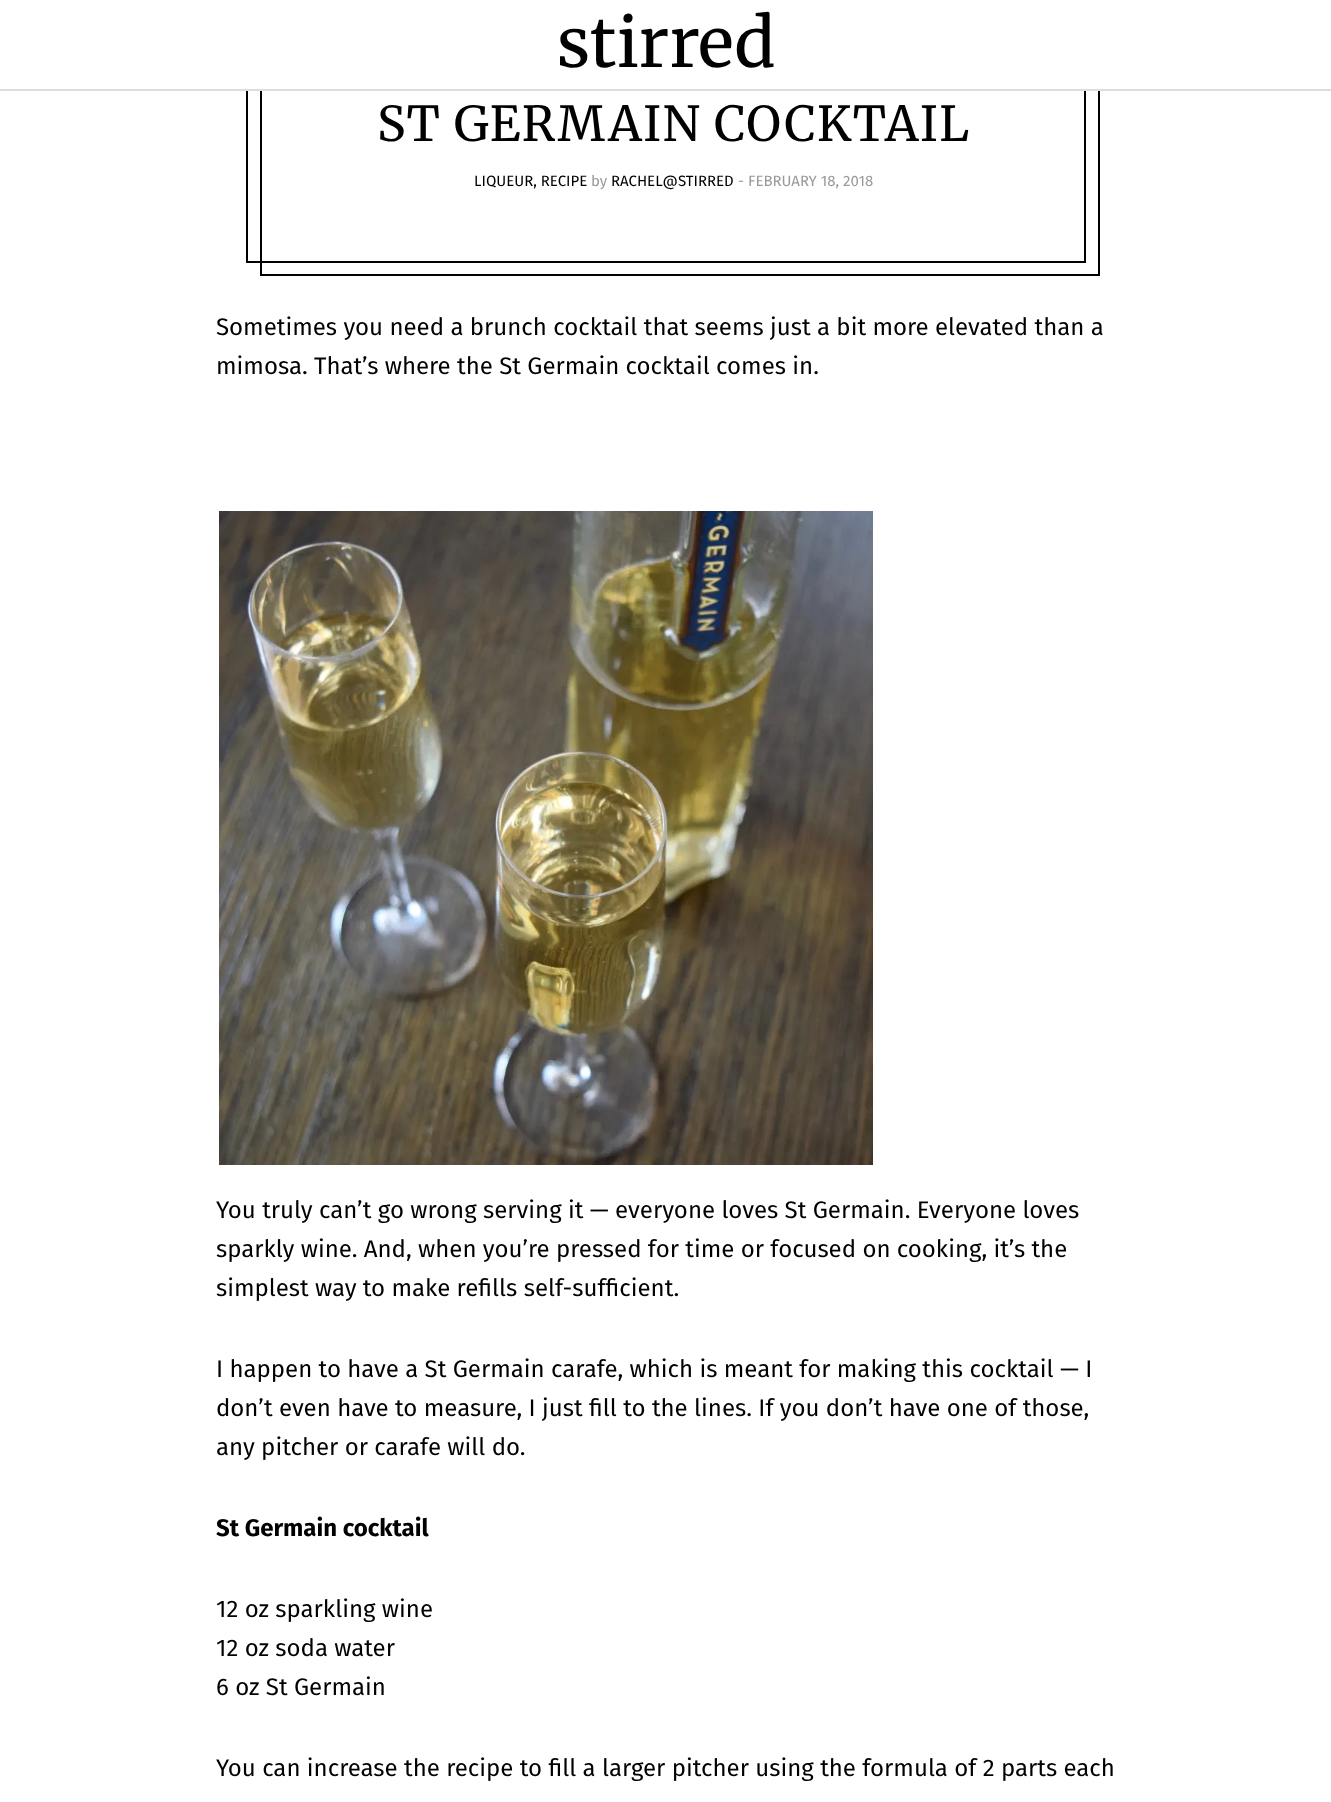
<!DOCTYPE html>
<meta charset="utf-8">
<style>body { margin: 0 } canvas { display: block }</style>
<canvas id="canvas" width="1331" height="1802"></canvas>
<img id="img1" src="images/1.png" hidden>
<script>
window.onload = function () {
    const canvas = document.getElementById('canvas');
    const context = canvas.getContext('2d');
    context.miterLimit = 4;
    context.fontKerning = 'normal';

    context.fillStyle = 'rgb(255, 255, 255)';
    context.fillRect(0, 0, 1331, 1802);
    context.strokeStyle = 'rgb(0, 0, 0)';
    context.lineWidth = 2;
    context.strokeRect(247, 4, 838, 258);
    context.strokeRect(261, 18, 838, 257);
    context.fillRect(246, 3, 854, 86);
    context.fillStyle = 'rgb(221, 221, 221)';
    context.fillRect(0, 89, 1331, 2);
    context.drawImage(document.getElementById('img1'), 219, 511, 654, 654);
    context.font = '300 67.5px Merriweather';
    context.fillStyle = 'rgb(0, 0, 0)';
    context.fillText('stirred', 557, 67);
    context.letterSpacing = '1.4px';
    context.font = '300 48px Merriweather';
    context.fillText('ST GERMAIN COCKTAIL', 377, 141);
    context.letterSpacing = '0px';
    context.font = '15px Fira Sans';
    context.fillText('LIQUEUR, RECIPE', 474, 186);
    context.fillStyle = 'rgb(154, 154, 152)';
    context.fillText('by', 591, 186);
    context.fillStyle = 'rgb(0, 0, 0)';
    context.fillText('RACHEL@STIRRED', 611, 186);
    context.fillStyle = 'rgb(154, 154, 152)';
    context.fillText('- FEBRUARY 18, 2018', 738, 186);
    context.font = '24px Fira Sans';
    context.fillStyle = 'rgb(0, 0, 0)';
    context.fillText('Sometimes you need a brunch cocktail that seems just a bit more elevated than a', 216, 335);
    context.fillText('mimosa. That’s where the St Germain cocktail comes in.', 216, 374);
    context.fillText('You truly can’t go wrong serving it — everyone loves St Germain. Everyone loves', 216, 1218);
    context.fillText('sparkly wine. And, when you’re pressed for time or focused on cooking, it’s the', 216, 1257);
    context.fillText('simplest way to make refills self-sufficient.', 216, 1296);
    context.fillText('I happen to have a St Germain carafe, which is meant for making this cocktail — I', 216, 1377);
    context.fillText('don’t even have to measure, I just fill to the lines. If you don’t have one of those,', 216, 1416);
    context.fillText('any pitcher or carafe will do.', 216, 1455);
    context.font = 'bold 24px Fira Sans';
    context.fillText('St Germain cocktail', 216, 1536);
    context.font = '24px Fira Sans';
    context.fillText('12 oz sparkling wine', 216, 1617);
    context.fillText('12 oz soda water', 216, 1656);
    context.fillText('6 oz St Germain', 216, 1695);
    context.fillText('You can increase the recipe to fill a larger pitcher using the formula of 2 parts each', 216, 1776);
};
</script>
